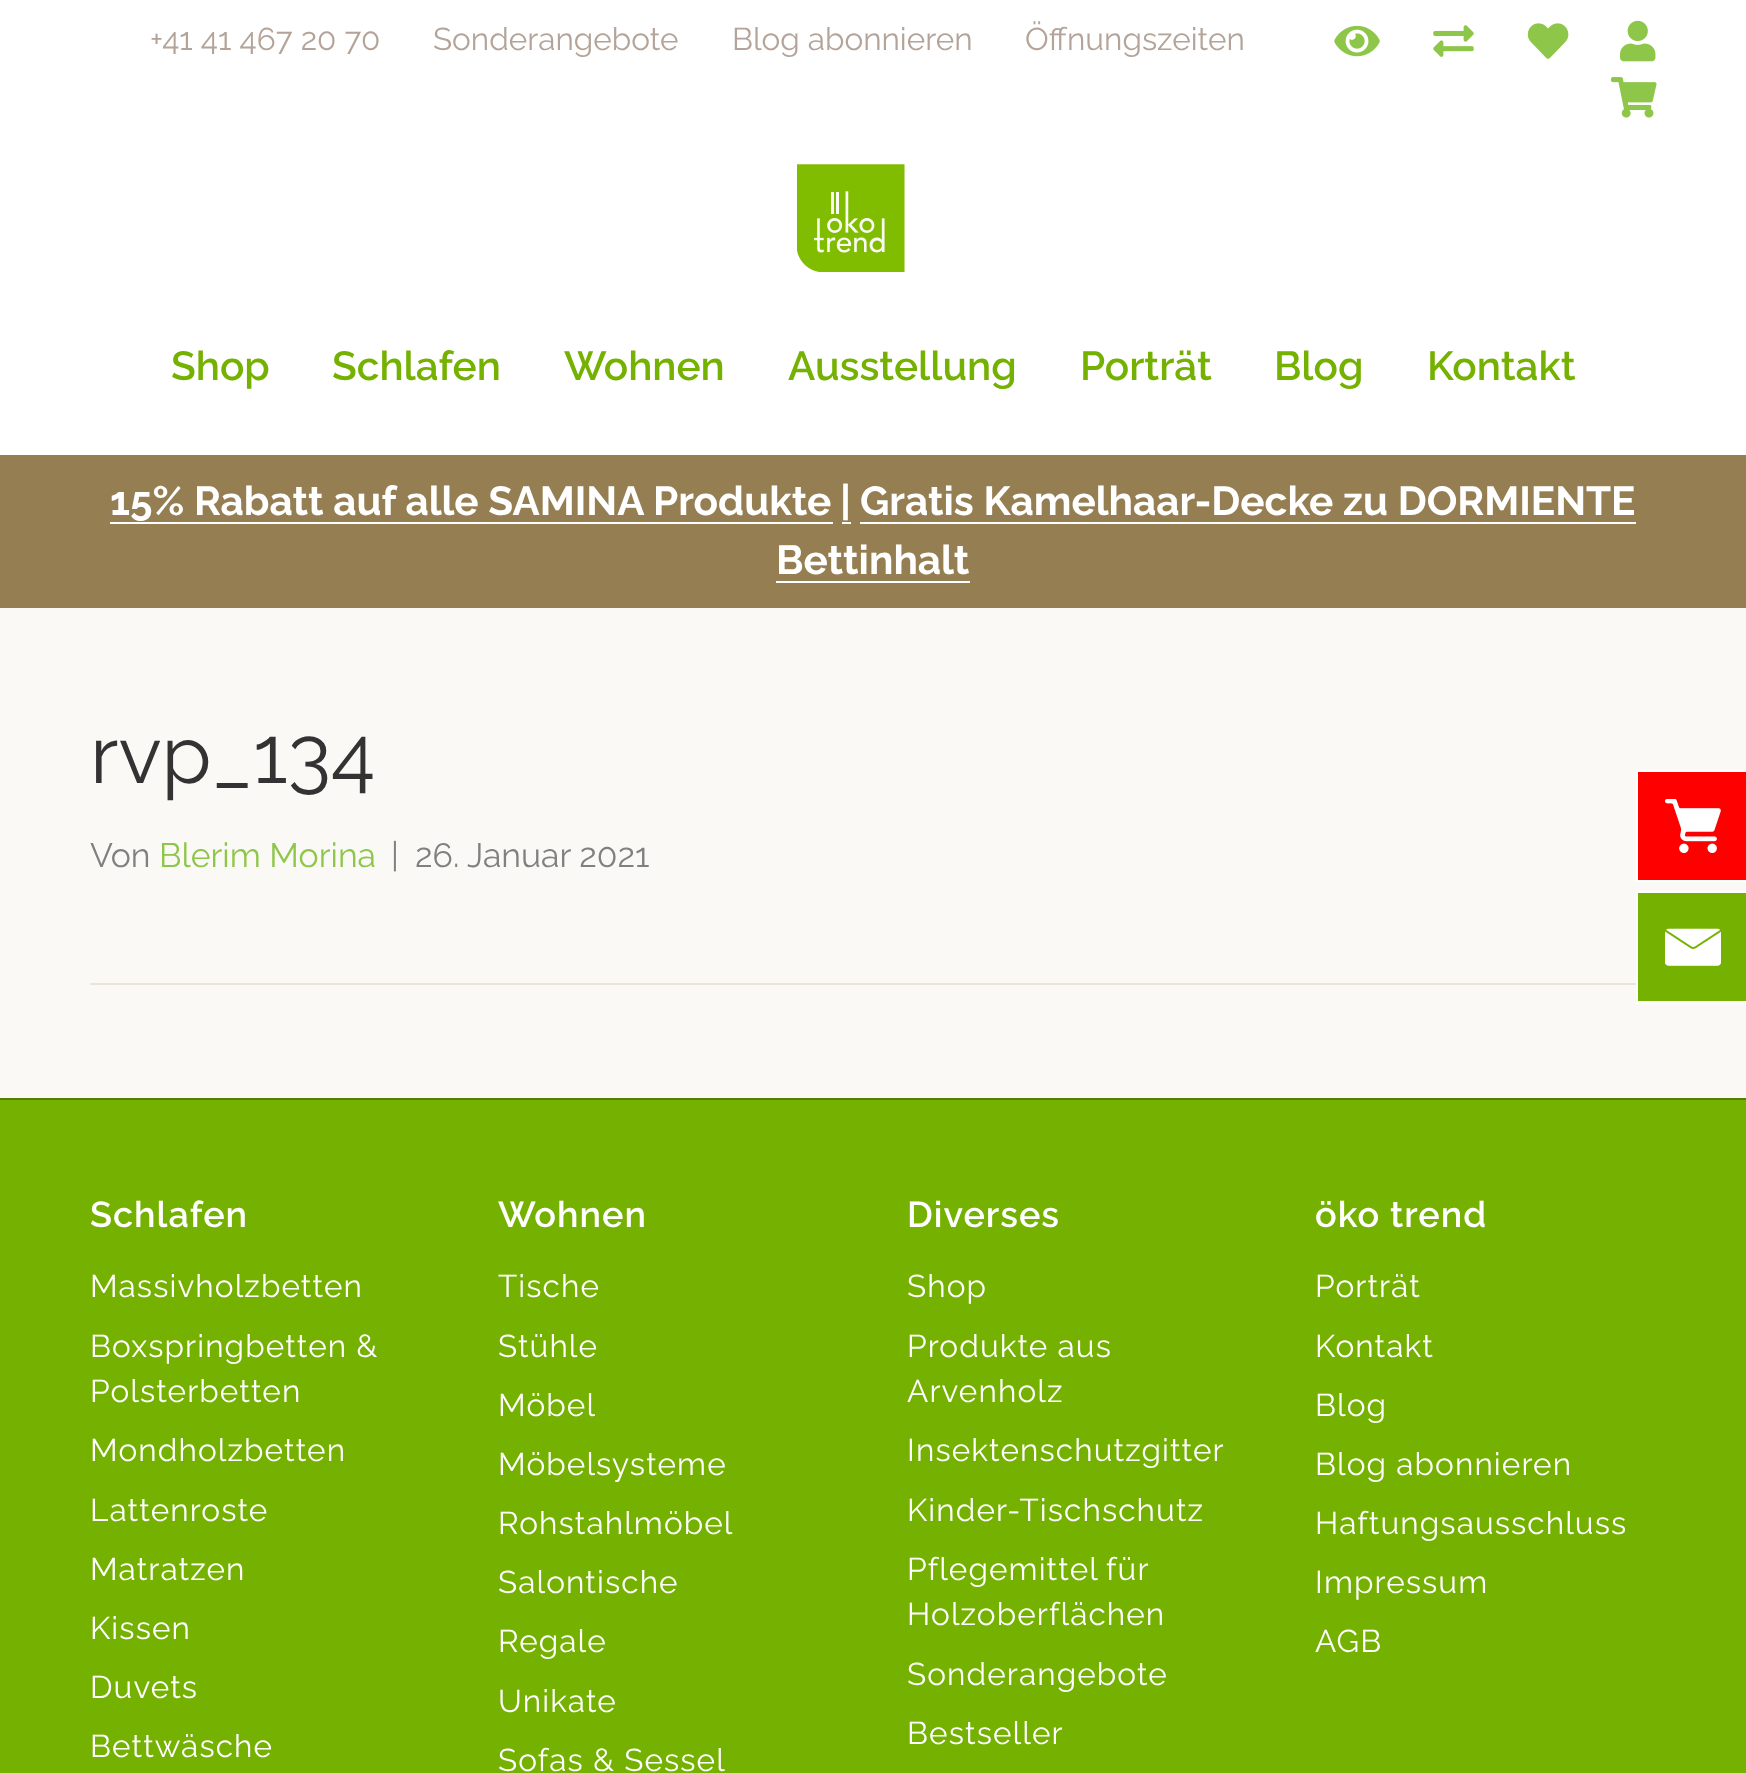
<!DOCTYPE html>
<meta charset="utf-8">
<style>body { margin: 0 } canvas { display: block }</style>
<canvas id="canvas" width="1746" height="1773"></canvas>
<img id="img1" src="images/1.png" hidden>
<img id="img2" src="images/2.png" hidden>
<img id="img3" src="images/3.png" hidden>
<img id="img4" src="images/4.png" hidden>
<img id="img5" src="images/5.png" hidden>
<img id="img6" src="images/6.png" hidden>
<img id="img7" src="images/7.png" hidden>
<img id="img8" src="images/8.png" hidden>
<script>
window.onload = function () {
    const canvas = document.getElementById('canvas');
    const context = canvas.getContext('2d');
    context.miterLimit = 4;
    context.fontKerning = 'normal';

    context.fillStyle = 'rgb(255, 255, 255)';
    context.fillRect(0, 0, 1746, 1773);
    context.drawImage(document.getElementById('img1'), 1334, 25, 46, 32);
    context.drawImage(document.getElementById('img2'), 1433, 25, 41, 32);
    context.drawImage(document.getElementById('img3'), 1527, 23, 42, 36);
    context.drawImage(document.getElementById('img4'), 1620, 20, 36, 42);
    context.drawImage(document.getElementById('img5'), 1611, 77, 46, 41);
    context.drawImage(document.getElementById('img6'), 797, 164, 108, 108);
    context.fillStyle = 'rgb(149, 126, 81)';
    context.fillRect(0, 455, 1746, 153);
    context.fillStyle = 'rgb(255, 255, 255)';
    context.fillRect(110, 522, 723, 2);
    context.fillRect(842, 522, 9, 2);
    context.fillRect(860, 522, 776, 2);
    context.fillRect(776, 581, 194, 2);
    context.fillStyle = 'rgb(250, 249, 245)';
    context.fillRect(0, 608, 1746, 490);
    context.fillStyle = 'rgb(233, 229, 211)';
    context.fillRect(90, 983, 1546, 2);
    context.fillStyle = 'rgb(116, 177, 0)';
    context.fillRect(0, 1100, 1746, 673);
    context.fillStyle = 'rgb(83, 126, 0)';
    context.fillRect(0, 1098, 1746, 2);
    context.strokeStyle = 'rgb(255, 255, 255)';
    context.lineWidth = 2;
    context.strokeRect(1637, 771, 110, 110);
    context.fillStyle = 'rgb(254, 0, 0)';
    context.fillRect(1638, 772, 108, 108);
    context.drawImage(document.getElementById('img7'), 1665, 799, 56, 54);
    context.strokeRect(1637, 892, 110, 111);
    context.fillStyle = 'rgb(116, 177, 0)';
    context.fillRect(1638, 893, 108, 108);
    context.drawImage(document.getElementById('img8'), 1665, 928, 56, 38);
    context.font = '31.5px Raleway';
    context.fillStyle = 'rgb(179, 163, 152)';
    context.fillText('+41 41 467 20 70', 150, 50);
    context.fillText('Sonderangebote', 433, 50);
    context.fillText('Blog abonnieren', 732, 50);
    context.fillText('Öffnungszeiten', 1025, 50);
    context.font = '600 40.5px Raleway';
    context.fillStyle = 'rgb(116, 177, 0)';
    context.fillText('Shop', 171, 380);
    context.fillText('Schlafen', 332, 380);
    context.fillText('Wohnen', 564, 380);
    context.fillText('Ausstellung', 788, 380);
    context.fillText('Porträt', 1080, 380);
    context.fillText('Blog', 1274, 380);
    context.fillText('Kontakt', 1427, 380);
    context.font = 'bold 40.5px Raleway';
    context.fillStyle = 'rgb(255, 255, 255)';
    context.fillText('15% Rabatt auf alle SAMINA Produkte', 110, 515);
    context.fillText('|', 840, 515);
    context.fillText('Gratis Kamelhaar-Decke zu DORMIENTE', 860, 515);
    context.fillText('Bettinhalt', 776, 574);
    context.font = '81px Raleway';
    context.fillStyle = 'rgb(51, 51, 51)';
    context.fillText('rvp_134', 90, 783);
    context.font = '33.75px Raleway';
    context.fillStyle = 'rgb(128, 128, 128)';
    context.fillText('Von', 90, 867);
    context.fillStyle = 'rgb(142, 198, 73)';
    context.fillText('Blerim Morina', 159, 867);
    context.fillStyle = 'rgb(128, 128, 128)';
    context.fillText('|', 391, 867);
    context.fillText('26. Januar 2021', 415, 867);
    context.letterSpacing = '1px';
    context.font = '600 36px Raleway';
    context.fillStyle = 'rgb(255, 255, 255)';
    context.fillText('Schlafen', 90, 1227);
    context.letterSpacing = '1.1px';
    context.font = '31.5px Raleway';
    context.fillText('Massivholzbetten', 90, 1297);
    context.fillText('Boxspringbetten &', 90, 1357);
    context.fillText('Polsterbetten', 90, 1402);
    context.fillText('Mondholzbetten', 90, 1461);
    context.fillText('Lattenroste', 90, 1521);
    context.fillText('Matratzen', 90, 1580);
    context.fillText('Kissen', 90, 1639);
    context.fillText('Duvets', 90, 1698);
    context.fillText('Bettwäsche', 90, 1757);
    context.letterSpacing = '1px';
    context.font = '600 36px Raleway';
    context.fillText('Wohnen', 498, 1227);
    context.letterSpacing = '1.1px';
    context.font = '31.5px Raleway';
    context.fillText('Tische', 498, 1297);
    context.fillText('Stühle', 498, 1357);
    context.fillText('Möbel', 498, 1416);
    context.fillText('Möbelsysteme', 498, 1475);
    context.fillText('Rohstahlmöbel', 498, 1534);
    context.fillText('Salontische', 498, 1593);
    context.fillText('Regale', 498, 1652);
    context.fillText('Unikate', 498, 1712);
    context.fillText('Sofas & Sessel', 498, 1771);
    context.letterSpacing = '1px';
    context.font = '600 36px Raleway';
    context.fillText('Diverses', 907, 1227);
    context.letterSpacing = '1.1px';
    context.font = '31.5px Raleway';
    context.fillText('Shop', 907, 1297);
    context.fillText('Produkte aus', 907, 1357);
    context.fillText('Arvenholz', 907, 1402);
    context.fillText('Insektenschutzgitter', 907, 1461);
    context.fillText('Kinder-Tischschutz', 907, 1521);
    context.wordSpacing = '-1px';
    context.fillText('Pflegemittel für', 907, 1580);
    context.wordSpacing = '0px';
    context.fillText('Holzoberflächen', 907, 1625);
    context.fillText('Sonderangebote', 907, 1685);
    context.fillText('Bestseller', 907, 1744);
    context.letterSpacing = '1px';
    context.font = '600 36px Raleway';
    context.fillText('öko trend', 1315, 1227);
    context.letterSpacing = '1.1px';
    context.font = '31.5px Raleway';
    context.fillText('Porträt', 1315, 1297);
    context.fillText('Kontakt', 1315, 1357);
    context.fillText('Blog', 1315, 1416);
    context.fillText('Blog abonnieren', 1315, 1475);
    context.fillText('Haftungsausschluss', 1315, 1534);
    context.fillText('Impressum', 1315, 1593);
    context.fillText('AGB', 1315, 1652);
};
</script>
